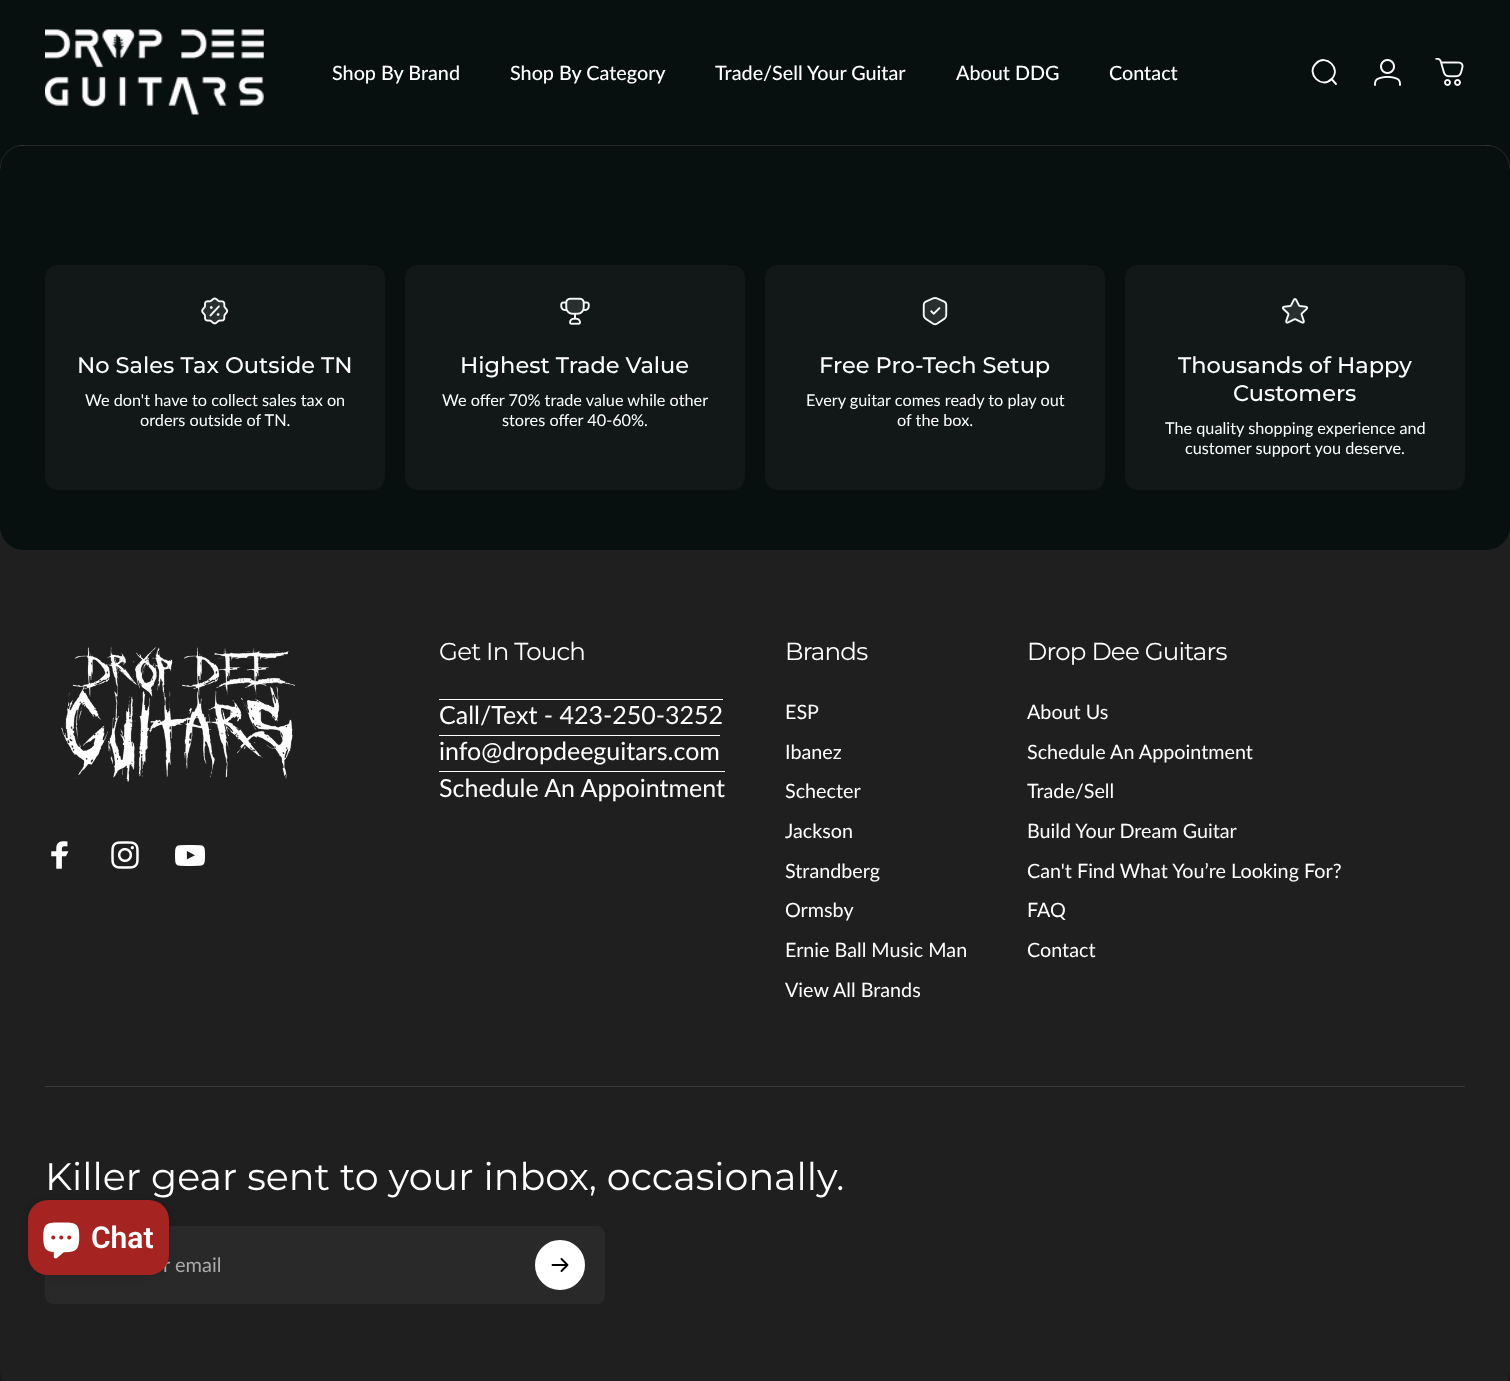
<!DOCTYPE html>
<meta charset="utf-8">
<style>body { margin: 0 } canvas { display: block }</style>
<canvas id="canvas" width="1510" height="1381"></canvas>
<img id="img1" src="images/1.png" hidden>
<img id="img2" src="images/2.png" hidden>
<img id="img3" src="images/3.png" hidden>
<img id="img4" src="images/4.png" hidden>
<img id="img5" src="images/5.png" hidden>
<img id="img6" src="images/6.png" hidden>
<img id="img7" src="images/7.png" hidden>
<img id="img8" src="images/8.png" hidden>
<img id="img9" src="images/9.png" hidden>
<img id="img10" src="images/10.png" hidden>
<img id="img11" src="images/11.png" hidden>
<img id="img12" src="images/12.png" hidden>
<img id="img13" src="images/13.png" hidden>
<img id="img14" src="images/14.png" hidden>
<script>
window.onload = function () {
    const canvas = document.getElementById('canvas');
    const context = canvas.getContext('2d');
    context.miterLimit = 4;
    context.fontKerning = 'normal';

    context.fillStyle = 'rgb(23, 23, 23)';
    context.fillRect(0, 0, 1510, 1381);
    context.fillStyle = 'rgb(8, 15, 15)';
    context.fillRect(0, 0, 1510, 205);
    context.drawImage(document.getElementById('img1'), 45, 29, 219, 86);
    context.beginPath();
    context.moveTo(1336, 84);
    context.lineTo(1331.5, 79);
    context.moveTo(1331.5, 79);
    context.bezierCurveTo(1342, 69, 1326, 53, 1316, 63.5);
    context.bezierCurveTo(1305.5, 73.5, 1321.5, 89.5, 1331.5, 79);
    context.closePath();
    context.strokeStyle = 'rgb(250, 250, 250)';
    context.lineWidth = 1.9;
    context.lineCap = 'round';
    context.stroke();
    context.drawImage(document.getElementById('img2'), 1374, 59, 27, 27);
    context.drawImage(document.getElementById('img3'), 1435, 58, 29, 28);
    context.fillStyle = 'rgb(36, 42, 42)';
    context.fillRect(18, 145, 1492, 1);
    context.drawImage(document.getElementById('img4'), 0, 145, 24, 24);
    context.drawImage(document.getElementById('img5'), 1486, 145, 24, 24);
    context.fillStyle = 'rgb(31, 31, 31)';
    context.beginPath();
    context.moveTo(0, 526);
    context.lineTo(1510, 526);
    context.lineTo(1510, 1370);
    context.bezierCurveTo(1510, 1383.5, 1499.5, 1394, 1486, 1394);
    context.lineTo(24, 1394);
    context.bezierCurveTo(10.5, 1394, 0, 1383.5, 0, 1370);
    context.closePath();
    context.fill();
    context.fillStyle = 'rgb(8, 15, 15)';
    context.beginPath();
    context.roundRect(0, 205, 1510, 345, [0, 0, 24, 24]);
    context.fill();
    context.fillStyle = 'rgb(18, 24, 24)';
    context.beginPath();
    context.roundRect(45, 265, 340, 225, 13);
    context.fill();
    context.drawImage(document.getElementById('img6'), 201, 297, 28, 28);
    context.beginPath();
    context.roundRect(405, 265, 340, 225, 13);
    context.fill();
    context.drawImage(document.getElementById('img7'), 560, 297, 30, 28);
    context.beginPath();
    context.roundRect(765, 265, 340, 225, 13);
    context.fill();
    context.drawImage(document.getElementById('img8'), 922, 297, 26, 29);
    context.beginPath();
    context.roundRect(1125, 265, 340, 225, 13);
    context.fill();
    context.drawImage(document.getElementById('img9'), 1281, 298, 28, 26);
    context.drawImage(document.getElementById('img10'), 61, 647, 234, 135);
    context.drawImage(document.getElementById('img11'), 51, 841, 18, 28);
    context.drawImage(document.getElementById('img12'), 111, 841, 28, 28);
    context.drawImage(document.getElementById('img13'), 175, 845, 30, 21);
    context.fillStyle = 'rgb(255, 255, 255)';
    context.fillRect(439, 699, 284, 1);
    context.fillRect(439, 735, 281, 1);
    context.fillRect(439, 771, 286, 1);
    context.fillStyle = 'rgb(57, 57, 57)';
    context.fillRect(45, 1086, 1420, 1);
    context.fillStyle = 'rgb(41, 41, 41)';
    context.beginPath();
    context.roundRect(45, 1226, 560, 78, 8);
    context.fill();
    context.fillStyle = 'rgb(255, 255, 255)';
    context.beginPath();
    context.arc(560, 1265, 23.5, 0, 2 * Math.PI);
    context.fill();
    context.strokeStyle = 'rgb(255, 255, 255)';
    context.lineWidth = 3;
    context.stroke();
    context.beginPath();
    context.moveTo(552.5, 1265);
    context.lineTo(567.5, 1265);
    context.moveTo(567.5, 1265);
    context.lineTo(561.5, 1259);
    context.moveTo(567.5, 1265);
    context.lineTo(561.5, 1271);
    context.strokeStyle = 'rgb(0, 0, 0)';
    context.lineWidth = 1.9;
    context.lineJoin = 'round';
    context.stroke();
    context.fillStyle = 'rgba(0, 0, 0, 0.15)';
    context.filter = 'blur(3px)';
    context.beginPath();
    context.roundRect(28, 1200, 141, 75, 20);
    context.fill();
    context.filter = 'none';
    context.font = '500 19.75px Lato';
    context.fillStyle = 'rgb(255, 255, 255)';
    context.fillText('Shop By Brand', 332, 80);
    context.fillText('Shop By Category', 510, 80);
    context.fillText('Trade/Sell Your Guitar', 715, 80);
    context.fillText('About DDG', 956, 80);
    context.fillText('Contact', 1109, 80);
    context.font = '500 22.5px Montserrat';
    context.fillText('No Sales Tax Outside TN', 77, 373);
    context.font = '16.25px Lato';
    context.fillText('We don\'t have to collect sales tax on', 85, 406);
    context.fillText('orders outside of TN.', 140, 426);
    context.font = '500 22.5px Montserrat';
    context.fillText('Highest Trade Value', 460, 373);
    context.font = '16.25px Lato';
    context.fillText('We offer 70% trade value while other', 442, 406);
    context.fillText('stores offer 40-60%.', 502, 426);
    context.font = '500 22.5px Montserrat';
    context.fillText('Free Pro-Tech Setup', 819, 373);
    context.font = '16.25px Lato';
    context.fillText('Every guitar comes ready to play out', 806, 406);
    context.fillText('of the box.', 897, 426);
    context.font = '500 22.5px Montserrat';
    context.fillText('Thousands of Happy', 1178, 373);
    context.fillText('Customers', 1233, 401);
    context.font = '16.25px Lato';
    context.fillText('The quality shopping experience and', 1165, 434);
    context.fillText('customer support you deserve.', 1185, 454);
    context.letterSpacing = '-0.75px';
    context.font = '24.5px Montserrat';
    context.fillText('Get In Touch', 439, 660);
    context.letterSpacing = '0px';
    context.font = '25px Lato';
    context.fillText('Call/Text - 423-250-3252', 439, 724);
    context.fillText('info@dropdeeguitars.com', 439, 760);
    context.fillText('Schedule An Appointment', 439, 797);
    context.letterSpacing = '-0.75px';
    context.font = '24.5px Montserrat';
    context.fillText('Brands', 785, 660);
    context.letterSpacing = '0px';
    context.font = '19.75px Lato';
    context.fillText('ESP', 785, 719);
    context.fillText('Ibanez', 785, 759);
    context.fillText('Schecter', 785, 798);
    context.fillText('Jackson', 785, 838);
    context.fillText('Strandberg', 785, 878);
    context.fillText('Ormsby', 785, 917);
    context.fillText('Ernie Ball Music Man', 785, 957);
    context.fillText('View All Brands', 785, 997);
    context.letterSpacing = '-0.75px';
    context.font = '24.5px Montserrat';
    context.fillText('Drop Dee Guitars', 1027, 660);
    context.letterSpacing = '0px';
    context.font = '19.75px Lato';
    context.fillText('About Us', 1027, 719);
    context.fillText('Schedule An Appointment', 1027, 759);
    context.fillText('Trade/Sell', 1027, 798);
    context.fillText('Build Your Dream Guitar', 1027, 838);
    context.fillText('Can\'t Find What You’re Looking For?', 1027, 878);
    context.fillText('FAQ', 1027, 917);
    context.fillText('Contact', 1027, 957);
    context.font = '38.1px Montserrat';
    context.fillText('Killer gear sent to your inbox, occasionally.', 45, 1190);
    context.font = '20px Lato';
    context.fillStyle = 'rgb(169, 169, 169)';
    context.fillText('r email', 163, 1272);
    context.fillStyle = 'rgb(165, 36, 34)';
    context.beginPath();
    context.roundRect(28, 1200, 141, 75, 20);
    context.fill();
    context.drawImage(document.getElementById('img14'), 43, 1222, 37, 37);
    context.font = '600 30px Roboto';
    context.fillStyle = 'rgb(255, 255, 255)';
    context.fillText('Chat', 91, 1248);
};
</script>
